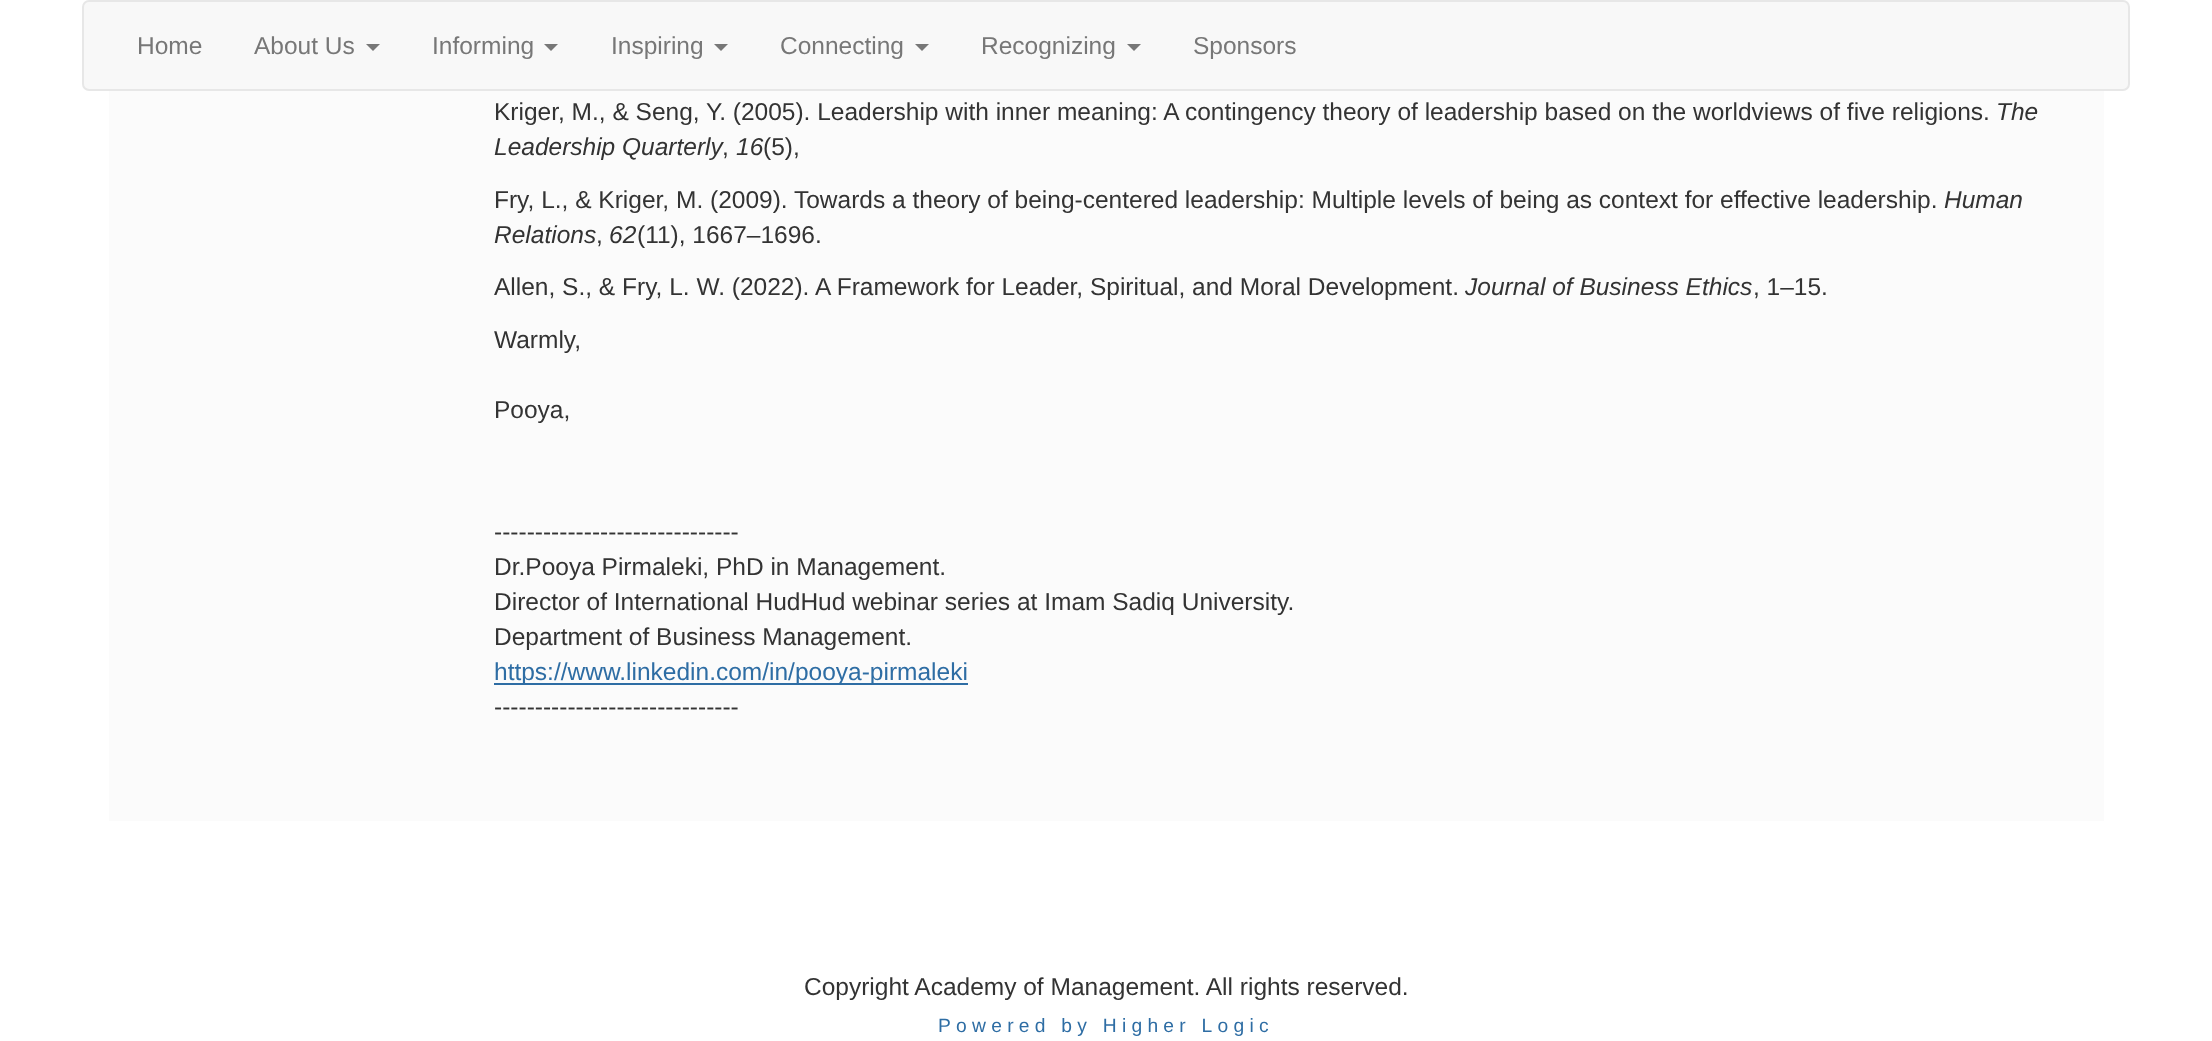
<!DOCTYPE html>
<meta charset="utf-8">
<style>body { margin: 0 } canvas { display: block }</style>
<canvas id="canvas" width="2212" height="1041"></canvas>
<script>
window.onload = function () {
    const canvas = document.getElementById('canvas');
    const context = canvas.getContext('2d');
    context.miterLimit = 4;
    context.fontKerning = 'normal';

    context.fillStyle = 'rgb(255, 255, 255)';
    context.fillRect(0, 0, 2212, 1041);
    context.fillStyle = 'rgb(248, 248, 248)';
    context.beginPath();
    context.roundRect(83, 1, 2046, 89, 6);
    context.fill();
    context.strokeStyle = 'rgb(231, 231, 231)';
    context.lineWidth = 2;
    context.stroke();
    context.fillStyle = 'rgb(119, 119, 119)';
    context.beginPath();
    context.moveTo(366, 44);
    context.lineTo(380, 44);
    context.lineTo(373, 51);
    context.closePath();
    context.fill();
    context.beginPath();
    context.moveTo(544, 44);
    context.lineTo(558, 44);
    context.lineTo(551, 51);
    context.closePath();
    context.fill();
    context.beginPath();
    context.moveTo(714, 44);
    context.lineTo(728, 44);
    context.lineTo(721, 51);
    context.closePath();
    context.fill();
    context.beginPath();
    context.moveTo(915, 44);
    context.lineTo(929, 44);
    context.lineTo(922, 51);
    context.closePath();
    context.fill();
    context.beginPath();
    context.moveTo(1127, 44);
    context.lineTo(1141, 44);
    context.lineTo(1134, 51);
    context.closePath();
    context.fill();
    context.fillStyle = 'rgb(251, 251, 251)';
    context.fillRect(109, 91, 1995, 730);
    context.fillStyle = 'rgb(46, 109, 164)';
    context.fillRect(494, 683, 474, 2);
    context.font = '24.5px Liberation Sans';
    context.fillStyle = 'rgb(119, 119, 119)';
    context.fillText('Home', 137, 54);
    context.fillText('About Us', 254, 54);
    context.fillText('Informing', 432, 54);
    context.fillText('Inspiring', 611, 54);
    context.fillText('Connecting', 780, 54);
    context.fillText('Recognizing', 981, 54);
    context.fillText('Sponsors', 1193, 54);
    context.fillStyle = 'rgb(51, 51, 51)';
    context.fillText('Kriger, M., & Seng, Y. (2005). Leadership with inner meaning: A contingency theory of leadership based on the worldviews of five religions.', 494, 120);
    context.font = 'italic 24.5px Liberation Sans';
    context.fillText('The', 1996, 120);
    context.fillText('Leadership Quarterly', 494, 155);
    context.font = '24.5px Liberation Sans';
    context.fillText(',', 722, 155);
    context.font = 'italic 24.5px Liberation Sans';
    context.fillText('16', 736, 155);
    context.font = '24.5px Liberation Sans';
    context.fillText('(5),', 763, 155);
    context.fillText('Fry, L., & Kriger, M. (2009). Towards a theory of being-centered leadership: Multiple levels of being as context for effective leadership.', 494, 208);
    context.font = 'italic 24.5px Liberation Sans';
    context.fillText('Human', 1944, 208);
    context.fillText('Relations', 494, 243);
    context.font = '24.5px Liberation Sans';
    context.fillText(',', 596, 243);
    context.font = 'italic 24.5px Liberation Sans';
    context.fillText('62', 609, 243);
    context.font = '24.5px Liberation Sans';
    context.fillText('(11), 1667–1696.', 637, 243);
    context.fillText('Allen, S., & Fry, L. W. (2022). A Framework for Leader, Spiritual, and Moral Development.', 494, 295);
    context.font = 'italic 24.5px Liberation Sans';
    context.fillText('Journal of Business Ethics', 1465, 295);
    context.font = '24.5px Liberation Sans';
    context.fillText(', 1–15.', 1753, 295);
    context.fillText('Warmly,', 494, 348);
    context.fillText('Pooya,', 494, 418);
    context.fillText('------------------------------', 494, 540);
    context.fillText('Dr.Pooya Pirmaleki, PhD in Management.', 494, 575);
    context.fillText('Director of International HudHud webinar series at Imam Sadiq University.', 494, 610);
    context.fillText('Department of Business Management.', 494, 645);
    context.fillStyle = 'rgb(46, 109, 164)';
    context.fillText('https://www.linkedin.com/in/pooya-pirmaleki', 494, 680);
    context.fillStyle = 'rgb(51, 51, 51)';
    context.fillText('------------------------------', 494, 715);
    context.fillText('Copyright Academy of Management. All rights reserved.', 804, 995);
    context.letterSpacing = '5.25px';
    context.font = '19.25px Liberation Sans';
    context.fillStyle = 'rgb(46, 109, 164)';
    context.fillText('Powered by Higher Logic', 938, 1032);
};
</script>
